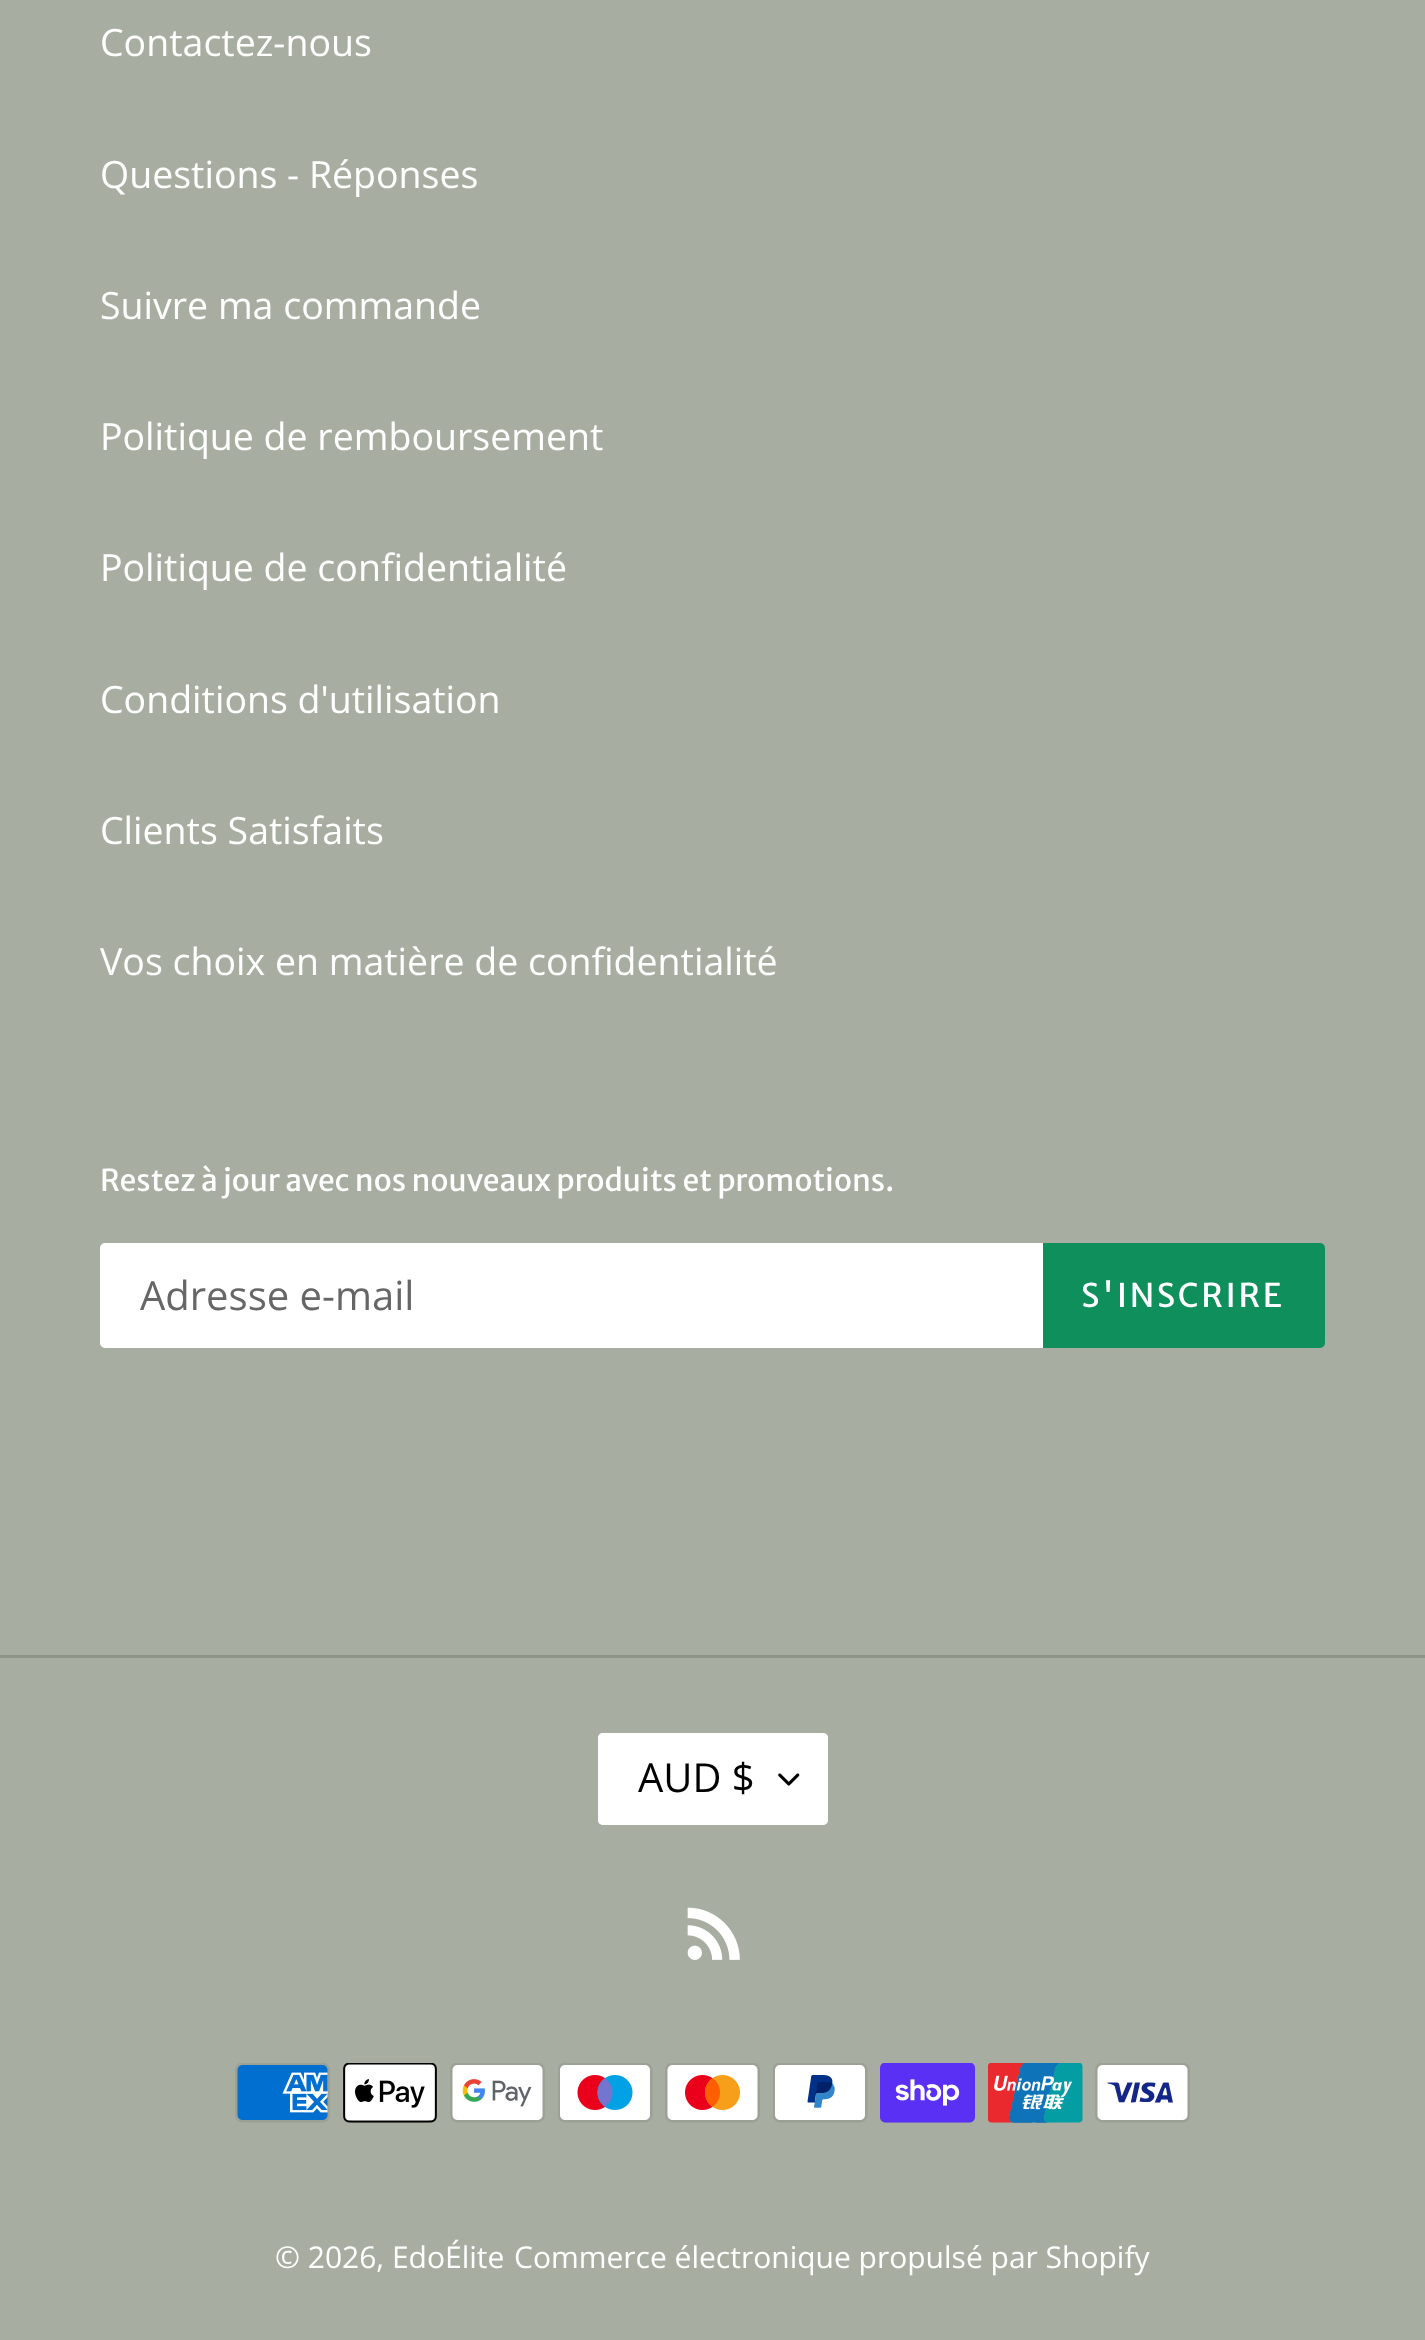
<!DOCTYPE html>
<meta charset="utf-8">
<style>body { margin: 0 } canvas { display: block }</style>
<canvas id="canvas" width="1425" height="2340"></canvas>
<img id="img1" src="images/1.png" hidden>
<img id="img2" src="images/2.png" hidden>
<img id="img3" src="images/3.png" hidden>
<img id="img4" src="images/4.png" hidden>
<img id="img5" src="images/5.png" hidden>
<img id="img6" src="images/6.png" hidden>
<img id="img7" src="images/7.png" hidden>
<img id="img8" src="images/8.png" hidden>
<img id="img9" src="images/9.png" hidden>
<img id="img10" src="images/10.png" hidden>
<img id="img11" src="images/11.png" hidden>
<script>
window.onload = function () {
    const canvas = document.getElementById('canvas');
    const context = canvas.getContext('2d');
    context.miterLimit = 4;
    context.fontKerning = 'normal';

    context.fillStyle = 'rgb(167, 174, 161)';
    context.fillRect(0, 0, 1425, 2340);
    context.fillStyle = 'rgb(255, 255, 255)';
    context.beginPath();
    context.roundRect(101.5, 1244.5, 940, 102, [3.5, 0, 0, 3.5]);
    context.fill();
    context.strokeStyle = 'rgb(255, 255, 255)';
    context.lineWidth = 3;
    context.stroke();
    context.fillStyle = 'rgb(15, 143, 92)';
    context.beginPath();
    context.roundRect(1043, 1243, 282, 105, [0, 5, 5, 0]);
    context.fill();
    context.fillStyle = 'rgb(141, 150, 134)';
    context.fillRect(0, 1655, 1425, 3);
    context.fillStyle = 'rgb(255, 255, 255)';
    context.beginPath();
    context.roundRect(598, 1733, 230, 92, 5);
    context.fill();
    context.drawImage(document.getElementById('img1'), 778, 1773, 22, 13);
    context.beginPath();
    context.roundRect(599.5, 1734.5, 227, 89, 3.5);
    context.stroke();
    context.drawImage(document.getElementById('img2'), 687, 1907, 53, 53);
    context.drawImage(document.getElementById('img3'), 235, 2063, 95, 60);
    context.drawImage(document.getElementById('img4'), 343, 2063, 94, 60);
    context.drawImage(document.getElementById('img5'), 450, 2063, 95, 60);
    context.drawImage(document.getElementById('img6'), 558, 2063, 95, 60);
    context.drawImage(document.getElementById('img7'), 665, 2063, 95, 60);
    context.drawImage(document.getElementById('img8'), 773, 2063, 95, 60);
    context.drawImage(document.getElementById('img9'), 880, 2063, 95, 60);
    context.drawImage(document.getElementById('img10'), 988, 2063, 95, 60);
    context.drawImage(document.getElementById('img11'), 1095, 2063, 95, 60);
    context.font = '37.5px Open Sans';
    context.fillText('Contactez-nous', 100, 56);
    context.fillText('Questions - Réponses', 100, 188);
    context.fillText('Suivre ma commande', 100, 319);
    context.fillText('Politique de remboursement', 100, 450);
    context.fillText('Politique de confidentialité', 100, 581);
    context.fillText('Conditions d\'utilisation', 100, 713);
    context.fillText('Clients Satisfaits', 100, 844);
    context.fillText('Vos choix en matière de confidentialité', 100, 975);
    context.font = '30px Merriweather Sans';
    context.fillText('Restez à jour avec nos nouveaux produits et promotions.', 100, 1191);
    context.font = '40px Open Sans';
    context.fillStyle = 'rgb(102, 102, 102)';
    context.fillText('Adresse e-mail', 140, 1310);
    context.letterSpacing = '2.6px';
    context.font = '32.5px Merriweather Sans';
    context.fillStyle = 'rgb(255, 255, 255)';
    context.fillText('S\'INSCRIRE', 1081, 1307);
    context.letterSpacing = '0px';
    context.font = '40px Open Sans';
    context.fillStyle = 'rgb(0, 0, 0)';
    context.fillText('AUD $', 638, 1792);
    context.font = '30px Open Sans';
    context.fillStyle = 'rgb(255, 255, 255)';
    context.fillText('© 2026, EdoÉlite', 275, 2268);
    context.fillText('Commerce électronique propulsé par Shopify', 514, 2268);
};
</script>
